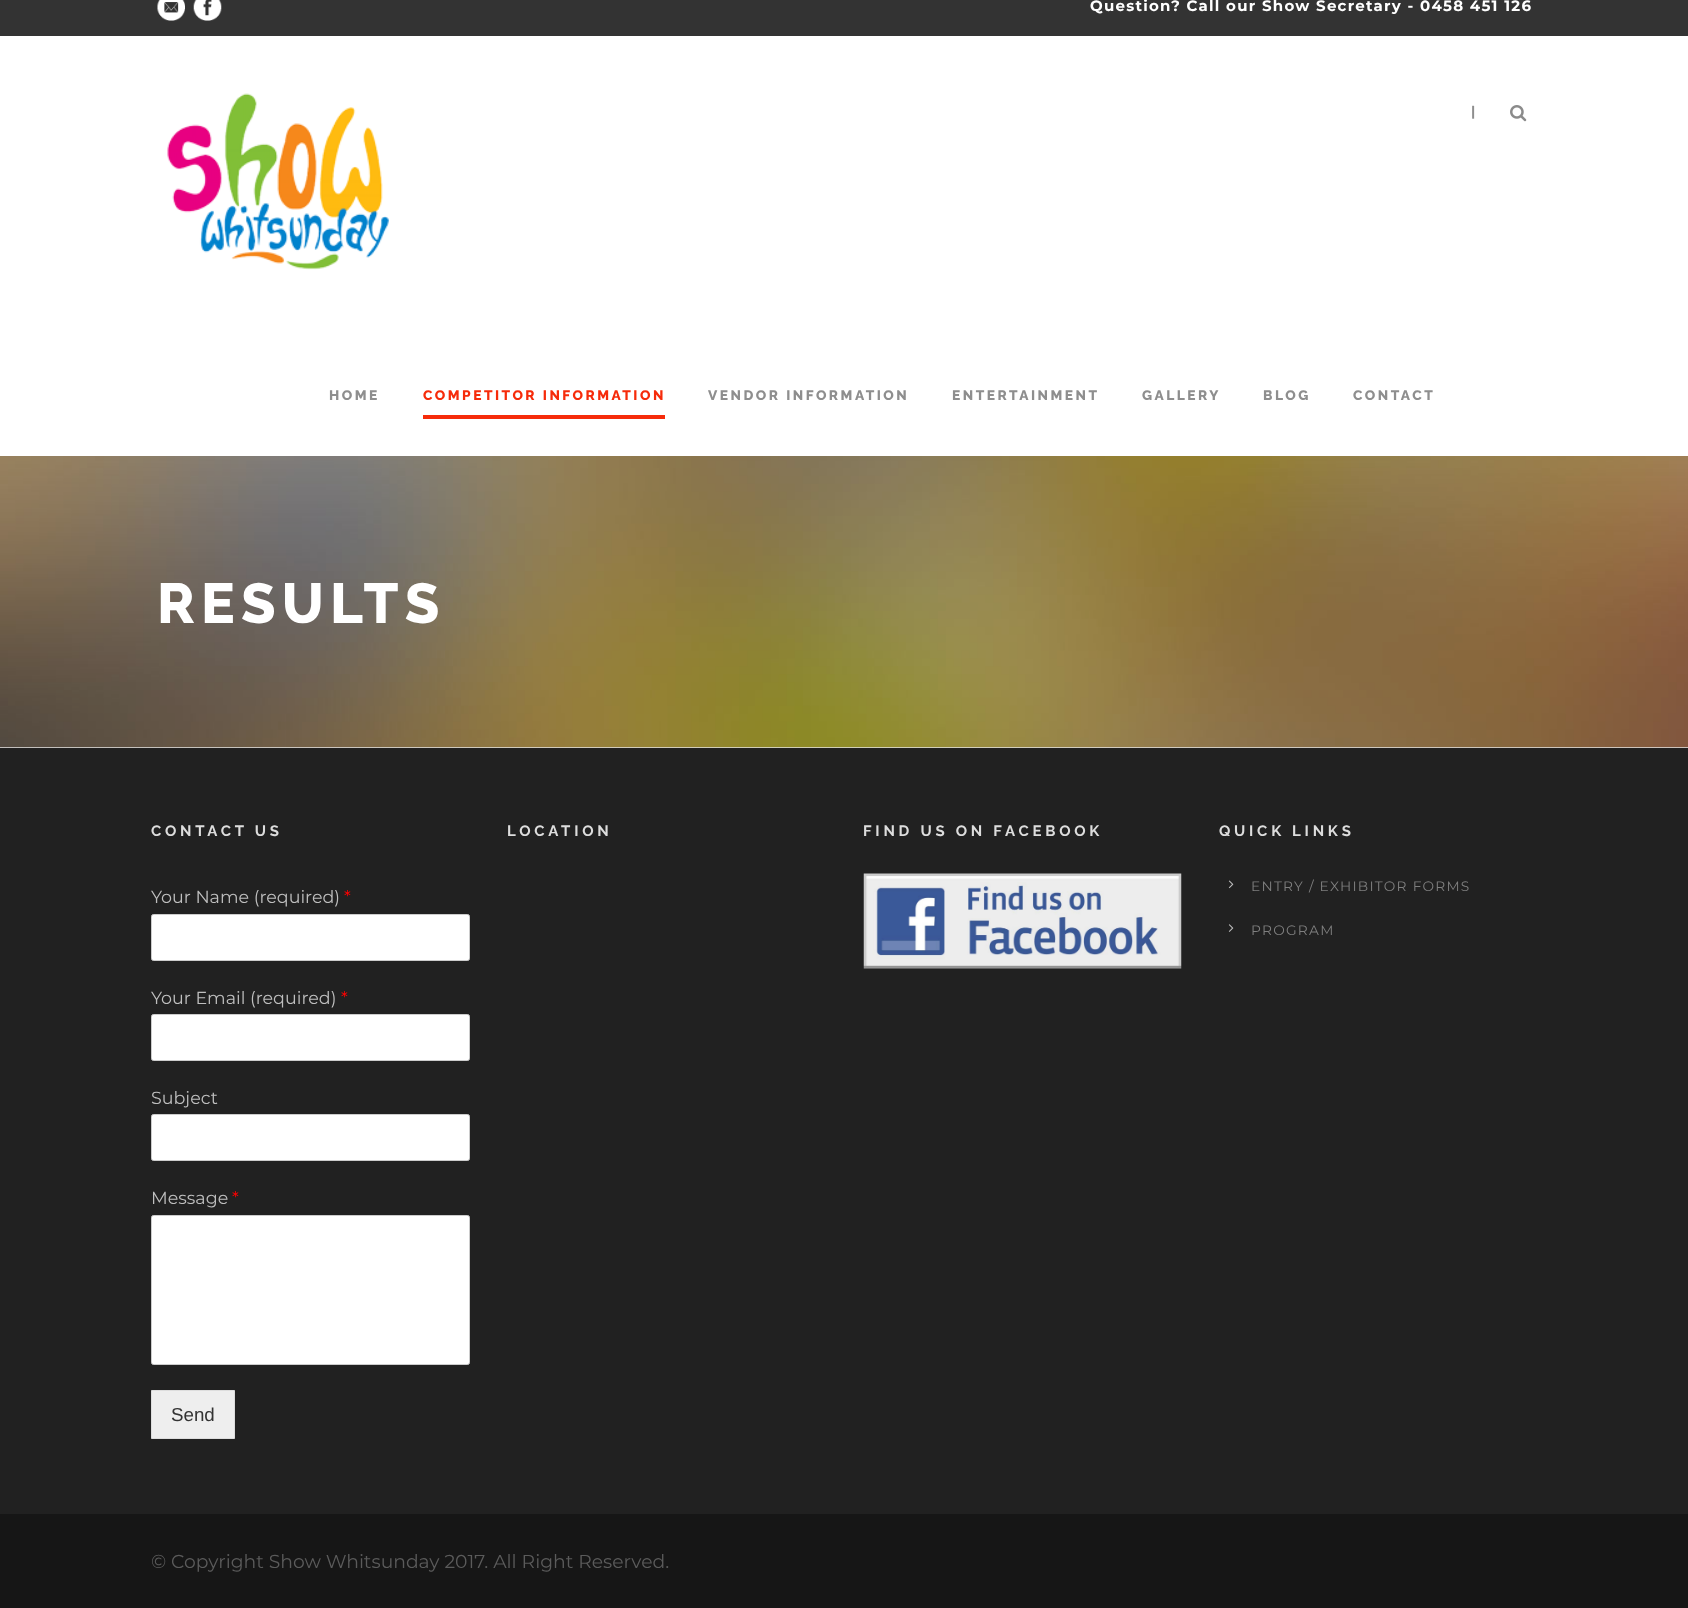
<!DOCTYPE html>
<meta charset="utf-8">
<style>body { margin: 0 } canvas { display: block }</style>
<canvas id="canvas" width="1688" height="1608"></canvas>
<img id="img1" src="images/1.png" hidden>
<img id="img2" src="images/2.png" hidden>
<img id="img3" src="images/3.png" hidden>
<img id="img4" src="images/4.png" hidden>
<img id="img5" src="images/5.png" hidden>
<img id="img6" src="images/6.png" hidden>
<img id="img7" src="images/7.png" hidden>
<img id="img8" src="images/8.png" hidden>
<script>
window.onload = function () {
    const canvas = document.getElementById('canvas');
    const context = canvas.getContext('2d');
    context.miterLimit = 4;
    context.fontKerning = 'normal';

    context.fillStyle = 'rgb(255, 255, 255)';
    context.fillRect(0, 0, 1688, 1608);
    context.fillStyle = 'rgb(230, 230, 230)';
    context.fillRect(0, 747, 1688, 1);
    context.fillStyle = 'rgb(51, 51, 51)';
    context.fillRect(0, 0, 1688, 36);
    context.drawImage(document.getElementById('img1'), 157, 0, 28, 21);
    context.drawImage(document.getElementById('img2'), 193, 0, 29, 21);
    context.drawImage(document.getElementById('img3'), 167, 93, 222, 177);
    context.drawImage(document.getElementById('img4'), 1510, 105, 17, 17);
    context.fillStyle = 'rgb(246, 43, 10)';
    context.fillRect(423, 415, 242, 4);
    context.drawImage(document.getElementById('img5'), 0, 456, 1688, 292);
    context.fillStyle = 'rgb(33, 33, 33)';
    context.fillRect(0, 748, 1688, 766);
    context.fillStyle = 'rgb(255, 255, 255)';
    context.beginPath();
    context.roundRect(151.5, 914.5, 318, 46, 2);
    context.fill();
    context.strokeStyle = 'rgb(204, 204, 204)';
    context.stroke();
    context.beginPath();
    context.roundRect(151.5, 1014.5, 318, 46, 2);
    context.fill();
    context.stroke();
    context.beginPath();
    context.roundRect(151.5, 1114.5, 318, 46, 2);
    context.fill();
    context.stroke();
    context.beginPath();
    context.roundRect(151.5, 1215.5, 318, 149, 2);
    context.fill();
    context.stroke();
    context.fillStyle = 'rgb(238, 238, 238)';
    context.beginPath();
    context.rect(151.5, 1390.5, 83, 48);
    context.fill();
    context.strokeStyle = 'rgb(221, 221, 221)';
    context.stroke();
    context.drawImage(document.getElementById('img6'), 863, 873, 319, 96);
    context.drawImage(document.getElementById('img7'), 1228, 880, 6, 9);
    context.drawImage(document.getElementById('img8'), 1228, 924, 6, 8);
    context.fillStyle = 'rgb(22, 22, 22)';
    context.fillRect(0, 1514, 1688, 94);
    context.letterSpacing = '1.25px';
    context.font = 'bold 15px Montserrat';
    context.fillStyle = 'rgb(255, 255, 255)';
    context.fillText('Question? Call our Show Secretary - 0458 451 126', 1090, 11);
    context.letterSpacing = '0px';
    context.font = 'bold 13.75px Montserrat';
    context.fillStyle = 'rgb(142, 142, 142)';
    context.fillText('|', 1471, 116);
    context.letterSpacing = '2.5px';
    context.font = '800 13.75px Raleway';
    context.fillText('HOME', 329, 400);
    context.fillStyle = 'rgb(246, 43, 10)';
    context.fillText('COMPETITOR INFORMATION', 423, 400);
    context.fillStyle = 'rgb(142, 142, 142)';
    context.fillText('VENDOR INFORMATION', 708, 400);
    context.fillText('ENTERTAINMENT', 952, 400);
    context.fillText('GALLERY', 1142, 400);
    context.fillText('BLOG', 1263, 400);
    context.fillText('CONTACT', 1353, 400);
    context.letterSpacing = '6.25px';
    context.font = '800 56.25px Raleway';
    context.fillStyle = 'rgb(255, 255, 255)';
    context.fillText('RESULTS', 157, 623);
    context.letterSpacing = '3.75px';
    context.font = 'bold 15px Raleway';
    context.fillStyle = 'rgb(221, 221, 221)';
    context.fillText('CONTACT US', 151, 836);
    context.letterSpacing = '0px';
    context.font = '17.5px Montserrat';
    context.fillStyle = 'rgb(191, 191, 191)';
    context.fillText('Your Name (required)', 151, 903);
    context.fillStyle = 'rgb(255, 0, 0)';
    context.fillText('*', 344, 903);
    context.fillStyle = 'rgb(191, 191, 191)';
    context.fillText('Your Email (required)', 151, 1004);
    context.fillStyle = 'rgb(255, 0, 0)';
    context.fillText('*', 341, 1004);
    context.fillStyle = 'rgb(191, 191, 191)';
    context.fillText('Subject', 151, 1104);
    context.fillText('Message', 151, 1204);
    context.fillStyle = 'rgb(255, 0, 0)';
    context.fillText('*', 232, 1204);
    context.font = '18.75px Liberation Sans';
    context.fillStyle = 'rgb(51, 51, 51)';
    context.fillText('Send', 171, 1421);
    context.letterSpacing = '3.75px';
    context.font = 'bold 15px Raleway';
    context.fillStyle = 'rgb(221, 221, 221)';
    context.fillText('LOCATION', 507, 836);
    context.fillText('FIND US ON FACEBOOK', 863, 836);
    context.fillText('QUICK LINKS', 1219, 836);
    context.letterSpacing = '1.25px';
    context.font = '13.75px Montserrat';
    context.fillStyle = 'rgb(127, 127, 127)';
    context.fillText('ENTRY / EXHIBITOR FORMS', 1251, 891);
    context.fillText('PROGRAM', 1251, 935);
    context.letterSpacing = '0px';
    context.font = '18.75px Montserrat';
    context.fillStyle = 'rgb(91, 91, 91)';
    context.fillText('© Copyright Show Whitsunday 2017. All Right Reserved.', 151, 1568);
};
</script>
